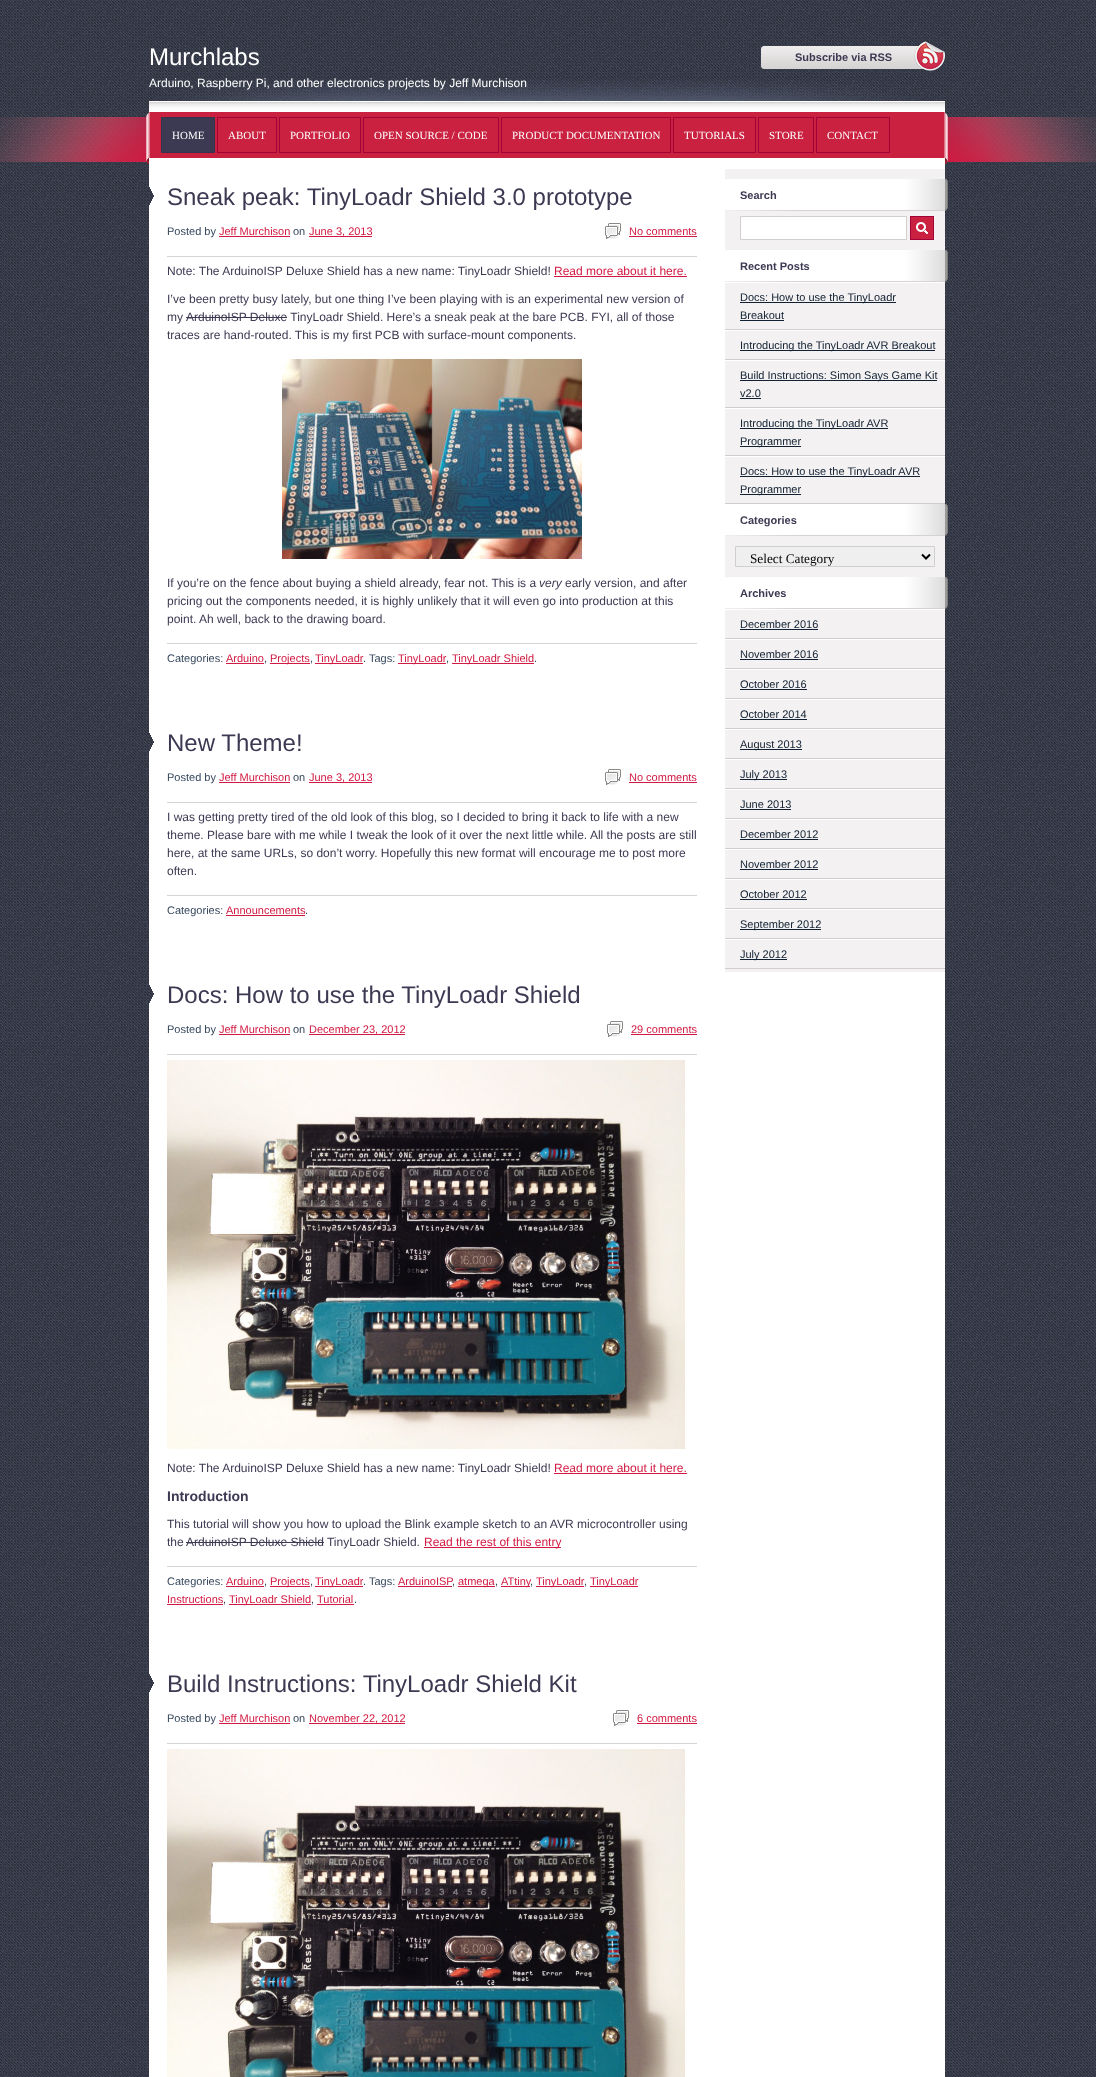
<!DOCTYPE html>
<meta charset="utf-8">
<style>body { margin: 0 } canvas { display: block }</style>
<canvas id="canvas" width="1096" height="2077"></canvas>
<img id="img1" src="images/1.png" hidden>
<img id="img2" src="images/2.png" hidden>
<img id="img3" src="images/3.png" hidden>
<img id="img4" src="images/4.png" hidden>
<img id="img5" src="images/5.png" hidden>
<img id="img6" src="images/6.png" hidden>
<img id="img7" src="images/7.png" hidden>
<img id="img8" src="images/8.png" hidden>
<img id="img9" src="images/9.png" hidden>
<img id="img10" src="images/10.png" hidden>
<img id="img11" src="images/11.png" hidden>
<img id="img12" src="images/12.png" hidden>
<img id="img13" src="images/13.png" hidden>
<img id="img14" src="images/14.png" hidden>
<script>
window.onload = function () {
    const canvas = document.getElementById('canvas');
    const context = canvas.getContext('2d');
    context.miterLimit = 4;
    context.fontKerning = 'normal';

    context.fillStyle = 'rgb(255, 255, 255)';
    context.fillRect(0, 0, 1096, 2077);
    context.drawImage(document.getElementById('img1'), 0, 0, 1096, 2077);
    context.drawImage(document.getElementById('img2'), 761, 41, 185, 30);
    context.drawImage(document.getElementById('img3'), 0, 117, 1096, 45);
    context.drawImage(document.getElementById('img4'), 146, 79, 802, 38);
    context.drawImage(document.getElementById('img5'), 146, 117, 802, 38);
    context.fillStyle = 'rgb(60, 57, 82)';
    context.beginPath();
    context.rect(161.5, 117.5, 53, 35);
    context.fill();
    context.strokeStyle = 'rgb(54, 52, 74)';
    context.stroke();
    context.strokeStyle = 'rgb(161, 2, 55)';
    context.strokeRect(217.5, 117.5, 59, 35);
    context.strokeRect(279.5, 117.5, 81, 35);
    context.strokeRect(363.5, 117.5, 135, 35);
    context.strokeRect(501.5, 117.5, 169, 35);
    context.strokeRect(673.5, 117.5, 82, 35);
    context.strokeRect(758.5, 117.5, 55, 35);
    context.strokeRect(816.5, 117.5, 73, 35);
    context.drawImage(document.getElementById('img6'), 146, 155, 802, 9);
    context.fillStyle = 'rgb(255, 255, 255)';
    context.fillRect(149, 164, 796, 1913);
    context.drawImage(document.getElementById('img7'), 149, 187, 5, 18);
    context.fillStyle = 'rgb(210, 25, 65)';
    context.fillRect(219, 236, 71, 1);
    context.fillRect(309, 236, 63, 1);
    context.drawImage(document.getElementById('img8'), 605, 223, 16, 16);
    context.fillRect(629, 236, 68, 1);
    context.fillStyle = 'rgb(214, 211, 211)';
    context.fillRect(167, 256, 530, 1);
    context.fillStyle = 'rgb(210, 25, 65)';
    context.fillRect(554, 276, 133, 1);
    context.fillStyle = 'rgb(60, 57, 82)';
    context.fillRect(186, 317, 101, 1);
    context.drawImage(document.getElementById('img9'), 282, 359, 300, 200);
    context.fillStyle = 'rgb(214, 211, 211)';
    context.fillRect(167, 643, 530, 1);
    context.fillStyle = 'rgb(210, 25, 65)';
    context.fillRect(226, 663, 38, 1);
    context.fillRect(270, 663, 40, 1);
    context.fillRect(315, 663, 48, 1);
    context.fillRect(398, 663, 48, 1);
    context.fillRect(452, 663, 82, 1);
    context.drawImage(document.getElementById('img7'), 149, 733, 5, 18);
    context.fillRect(219, 782, 71, 1);
    context.fillRect(309, 782, 63, 1);
    context.drawImage(document.getElementById('img8'), 605, 769, 16, 16);
    context.fillRect(629, 782, 68, 1);
    context.fillStyle = 'rgb(214, 211, 211)';
    context.fillRect(167, 802, 530, 1);
    context.fillRect(167, 895, 530, 1);
    context.fillStyle = 'rgb(210, 25, 65)';
    context.fillRect(226, 915, 79, 1);
    context.drawImage(document.getElementById('img7'), 149, 985, 5, 18);
    context.fillRect(219, 1034, 71, 1);
    context.fillRect(309, 1034, 96, 1);
    context.drawImage(document.getElementById('img8'), 607, 1021, 16, 16);
    context.fillRect(631, 1034, 66, 1);
    context.fillStyle = 'rgb(214, 211, 211)';
    context.fillRect(167, 1054, 530, 1);
    context.drawImage(document.getElementById('img10'), 167, 1060, 518, 389);
    context.fillStyle = 'rgb(210, 25, 65)';
    context.fillRect(554, 1473, 133, 1);
    context.fillStyle = 'rgb(60, 57, 82)';
    context.fillRect(186, 1542, 138, 1);
    context.fillStyle = 'rgb(210, 25, 65)';
    context.fillRect(424, 1547, 137, 1);
    context.fillStyle = 'rgb(214, 211, 211)';
    context.fillRect(167, 1566, 530, 1);
    context.fillStyle = 'rgb(210, 25, 65)';
    context.fillRect(226, 1586, 38, 1);
    context.fillRect(270, 1586, 40, 1);
    context.fillRect(315, 1586, 48, 1);
    context.fillRect(398, 1586, 54, 1);
    context.fillRect(458, 1586, 37, 1);
    context.fillRect(501, 1586, 29, 1);
    context.fillRect(536, 1586, 48, 1);
    context.fillRect(590, 1586, 48, 1);
    context.fillRect(167, 1604, 56, 1);
    context.fillRect(229, 1604, 82, 1);
    context.fillRect(317, 1604, 37, 1);
    context.drawImage(document.getElementById('img7'), 149, 1674, 5, 18);
    context.fillRect(219, 1723, 71, 1);
    context.fillRect(309, 1723, 96, 1);
    context.drawImage(document.getElementById('img8'), 613, 1710, 16, 16);
    context.fillRect(637, 1723, 60, 1);
    context.fillStyle = 'rgb(214, 211, 211)';
    context.fillRect(167, 1743, 530, 1);
    context.drawImage(document.getElementById('img11'), 167, 1749, 518, 328);
    context.fillStyle = 'rgb(243, 241, 241)';
    context.fillRect(725, 169, 220, 803);
    context.fillStyle = 'rgb(252, 251, 251)';
    context.fillRect(725, 169, 1, 1);
    context.drawImage(document.getElementById('img12'), 725, 179, 223, 28);
    context.drawImage(document.getElementById('img13'), 725, 207, 223, 4);
    context.fillStyle = 'rgb(255, 255, 255)';
    context.beginPath();
    context.rect(740.5, 216.5, 166, 23);
    context.fill();
    context.strokeStyle = 'rgb(209, 206, 206)';
    context.stroke();
    context.fillStyle = 'rgb(201, 33, 63)';
    context.fillRect(911, 217, 22, 22);
    context.drawImage(document.getElementById('img14'), 916, 222, 12, 12);
    context.strokeStyle = 'rgb(161, 2, 55)';
    context.strokeRect(910.5, 216.5, 23, 23);
    context.drawImage(document.getElementById('img12'), 725, 250, 223, 28);
    context.drawImage(document.getElementById('img13'), 725, 278, 223, 4);
    context.fillStyle = 'rgb(255, 255, 255)';
    context.fillRect(725, 282, 220, 1);
    context.fillStyle = 'rgb(209, 206, 206)';
    context.fillRect(725, 329, 220, 1);
    context.fillStyle = 'rgb(17, 32, 50)';
    context.fillRect(740, 302, 156, 1);
    context.fillRect(740, 320, 44, 1);
    context.fillStyle = 'rgb(255, 255, 255)';
    context.fillRect(725, 330, 220, 1);
    context.fillStyle = 'rgb(209, 206, 206)';
    context.fillRect(725, 359, 220, 1);
    context.fillStyle = 'rgb(17, 32, 50)';
    context.fillRect(740, 350, 195, 1);
    context.fillStyle = 'rgb(255, 255, 255)';
    context.fillRect(725, 360, 220, 1);
    context.fillStyle = 'rgb(209, 206, 206)';
    context.fillRect(725, 407, 220, 1);
    context.fillStyle = 'rgb(17, 32, 50)';
    context.fillRect(740, 380, 197, 1);
    context.fillRect(740, 398, 21, 1);
    context.fillStyle = 'rgb(255, 255, 255)';
    context.fillRect(725, 408, 220, 1);
    context.fillStyle = 'rgb(209, 206, 206)';
    context.fillRect(725, 455, 220, 1);
    context.fillStyle = 'rgb(17, 32, 50)';
    context.fillRect(740, 428, 148, 1);
    context.fillRect(740, 446, 61, 1);
    context.fillStyle = 'rgb(255, 255, 255)';
    context.fillRect(725, 456, 220, 1);
    context.fillStyle = 'rgb(209, 206, 206)';
    context.fillRect(725, 503, 220, 1);
    context.fillStyle = 'rgb(17, 32, 50)';
    context.fillRect(740, 476, 180, 1);
    context.fillRect(740, 494, 61, 1);
    context.drawImage(document.getElementById('img12'), 725, 504, 223, 28);
    context.drawImage(document.getElementById('img13'), 725, 532, 223, 4);
    context.fillStyle = 'rgb(239, 239, 239)';
    context.beginPath();
    context.rect(735.5, 546.5, 199, 20);
    context.fill();
    context.strokeStyle = 'rgb(209, 206, 206)';
    context.stroke();
    context.beginPath();
    context.moveTo(922, 554.5);
    context.lineTo(926, 558.5);
    context.lineTo(930, 554.5);
    context.strokeStyle = 'rgb(0, 0, 0)';
    context.lineWidth = 2;
    context.stroke();
    context.drawImage(document.getElementById('img12'), 725, 577, 223, 28);
    context.drawImage(document.getElementById('img13'), 725, 605, 223, 4);
    context.fillStyle = 'rgb(255, 255, 255)';
    context.fillRect(725, 609, 220, 1);
    context.fillStyle = 'rgb(209, 206, 206)';
    context.fillRect(725, 638, 220, 1);
    context.fillStyle = 'rgb(17, 32, 50)';
    context.fillRect(740, 629, 78, 1);
    context.fillStyle = 'rgb(255, 255, 255)';
    context.fillRect(725, 639, 220, 1);
    context.fillStyle = 'rgb(209, 206, 206)';
    context.fillRect(725, 668, 220, 1);
    context.fillStyle = 'rgb(17, 32, 50)';
    context.fillRect(740, 659, 78, 1);
    context.fillStyle = 'rgb(255, 255, 255)';
    context.fillRect(725, 669, 220, 1);
    context.fillStyle = 'rgb(209, 206, 206)';
    context.fillRect(725, 698, 220, 1);
    context.fillStyle = 'rgb(17, 32, 50)';
    context.fillRect(740, 689, 67, 1);
    context.fillStyle = 'rgb(255, 255, 255)';
    context.fillRect(725, 699, 220, 1);
    context.fillStyle = 'rgb(209, 206, 206)';
    context.fillRect(725, 728, 220, 1);
    context.fillStyle = 'rgb(17, 32, 50)';
    context.fillRect(740, 719, 67, 1);
    context.fillStyle = 'rgb(255, 255, 255)';
    context.fillRect(725, 729, 220, 1);
    context.fillStyle = 'rgb(209, 206, 206)';
    context.fillRect(725, 758, 220, 1);
    context.fillStyle = 'rgb(17, 32, 50)';
    context.fillRect(740, 749, 62, 1);
    context.fillStyle = 'rgb(255, 255, 255)';
    context.fillRect(725, 759, 220, 1);
    context.fillStyle = 'rgb(209, 206, 206)';
    context.fillRect(725, 788, 220, 1);
    context.fillStyle = 'rgb(17, 32, 50)';
    context.fillRect(740, 779, 47, 1);
    context.fillStyle = 'rgb(255, 255, 255)';
    context.fillRect(725, 789, 220, 1);
    context.fillStyle = 'rgb(209, 206, 206)';
    context.fillRect(725, 818, 220, 1);
    context.fillStyle = 'rgb(17, 32, 50)';
    context.fillRect(740, 809, 51, 1);
    context.fillStyle = 'rgb(255, 255, 255)';
    context.fillRect(725, 819, 220, 1);
    context.fillStyle = 'rgb(209, 206, 206)';
    context.fillRect(725, 848, 220, 1);
    context.fillStyle = 'rgb(17, 32, 50)';
    context.fillRect(740, 839, 78, 1);
    context.fillStyle = 'rgb(255, 255, 255)';
    context.fillRect(725, 849, 220, 1);
    context.fillStyle = 'rgb(209, 206, 206)';
    context.fillRect(725, 878, 220, 1);
    context.fillStyle = 'rgb(17, 32, 50)';
    context.fillRect(740, 869, 78, 1);
    context.fillStyle = 'rgb(255, 255, 255)';
    context.fillRect(725, 879, 220, 1);
    context.fillStyle = 'rgb(209, 206, 206)';
    context.fillRect(725, 908, 220, 1);
    context.fillStyle = 'rgb(17, 32, 50)';
    context.fillRect(740, 899, 67, 1);
    context.fillStyle = 'rgb(255, 255, 255)';
    context.fillRect(725, 909, 220, 1);
    context.fillStyle = 'rgb(209, 206, 206)';
    context.fillRect(725, 938, 220, 1);
    context.fillStyle = 'rgb(17, 32, 50)';
    context.fillRect(740, 929, 81, 1);
    context.fillStyle = 'rgb(255, 255, 255)';
    context.fillRect(725, 939, 220, 1);
    context.fillStyle = 'rgb(209, 206, 206)';
    context.fillRect(725, 968, 220, 1);
    context.fillStyle = 'rgb(17, 32, 50)';
    context.fillRect(740, 959, 47, 1);
    context.fillStyle = 'rgb(252, 251, 251)';
    context.fillRect(725, 971, 1, 1);
    context.font = '24px Liberation Sans';
    context.fillStyle = 'rgb(255, 255, 255)';
    context.fillText('Murchlabs', 149, 65);
    context.font = '12px Liberation Sans';
    context.fillText('Arduino, Raspberry Pi, and other electronics projects by Jeff Murchison', 149, 87);
    context.font = 'bold 11px Liberation Sans';
    context.fillStyle = 'rgb(60, 57, 82)';
    context.fillText('Subscribe via RSS', 795, 61);
    context.font = '11px Liberation Serif';
    context.fillStyle = 'rgb(255, 255, 255)';
    context.fillText('HOME', 172, 139);
    context.fillText('ABOUT', 228, 139);
    context.fillText('PORTFOLIO', 290, 139);
    context.fillText('OPEN SOURCE / CODE', 374, 139);
    context.fillText('PRODUCT DOCUMENTATION', 512, 139);
    context.fillText('TUTORIALS', 684, 139);
    context.fillText('STORE', 769, 139);
    context.fillText('CONTACT', 827, 139);
    context.font = '24px Liberation Sans';
    context.fillStyle = 'rgb(60, 57, 82)';
    context.fillText('Sneak peak: TinyLoadr Shield 3.0 prototype', 167, 205);
    context.font = '11px Liberation Sans';
    context.fillStyle = 'rgb(54, 71, 93)';
    context.fillText('Posted by', 167, 235);
    context.fillStyle = 'rgb(210, 25, 65)';
    context.fillText('Jeff Murchison', 219, 235);
    context.fillStyle = 'rgb(54, 71, 93)';
    context.fillText('on', 293, 235);
    context.fillStyle = 'rgb(210, 25, 65)';
    context.fillText('June 3, 2013', 309, 235);
    context.fillText('No comments', 629, 235);
    context.font = '12px Liberation Sans';
    context.fillStyle = 'rgb(60, 57, 82)';
    context.fillText('Note: The ArduinoISP Deluxe Shield has a new name: TinyLoadr Shield!', 167, 275);
    context.fillStyle = 'rgb(210, 25, 65)';
    context.fillText('Read more about it here.', 554, 275);
    context.fillStyle = 'rgb(60, 57, 82)';
    context.fillText('I’ve been pretty busy lately, but one thing I’ve been playing with is an experimental new version of', 167, 303);
    context.fillText('my', 167, 321);
    context.fillText('ArduinoISP Deluxe TinyLoadr Shield. Here’s a sneak peak at the bare PCB. FYI, all of those', 186, 321);
    context.fillText('traces are hand-routed. This is my first PCB with surface-mount components.', 167, 339);
    context.fillText('If you’re on the fence about buying a shield already, fear not. This is a', 167, 587);
    context.font = 'italic 12px Liberation Sans';
    context.fillText('very', 539, 587);
    context.font = '12px Liberation Sans';
    context.fillText('early version, and after', 565, 587);
    context.fillText('pricing out the components needed, it is highly unlikely that it will even go into production at this', 167, 605);
    context.fillText('point. Ah well, back to the drawing board.', 167, 623);
    context.font = '11px Liberation Sans';
    context.fillStyle = 'rgb(54, 71, 93)';
    context.fillText('Categories:', 167, 662);
    context.fillStyle = 'rgb(210, 25, 65)';
    context.fillText('Arduino', 226, 662);
    context.fillStyle = 'rgb(54, 71, 93)';
    context.fillText(',', 264, 662);
    context.fillStyle = 'rgb(210, 25, 65)';
    context.fillText('Projects', 270, 662);
    context.fillStyle = 'rgb(54, 71, 93)';
    context.fillText(',', 310, 662);
    context.fillStyle = 'rgb(210, 25, 65)';
    context.fillText('TinyLoadr', 315, 662);
    context.fillStyle = 'rgb(54, 71, 93)';
    context.fillText('. Tags:', 363, 662);
    context.fillStyle = 'rgb(210, 25, 65)';
    context.fillText('TinyLoadr', 398, 662);
    context.fillStyle = 'rgb(54, 71, 93)';
    context.fillText(',', 446, 662);
    context.fillStyle = 'rgb(210, 25, 65)';
    context.fillText('TinyLoadr Shield', 452, 662);
    context.fillStyle = 'rgb(54, 71, 93)';
    context.fillText('.', 534, 662);
    context.font = '24px Liberation Sans';
    context.fillStyle = 'rgb(60, 57, 82)';
    context.fillText('New Theme!', 167, 751);
    context.font = '11px Liberation Sans';
    context.fillStyle = 'rgb(54, 71, 93)';
    context.fillText('Posted by', 167, 781);
    context.fillStyle = 'rgb(210, 25, 65)';
    context.fillText('Jeff Murchison', 219, 781);
    context.fillStyle = 'rgb(54, 71, 93)';
    context.fillText('on', 293, 781);
    context.fillStyle = 'rgb(210, 25, 65)';
    context.fillText('June 3, 2013', 309, 781);
    context.fillText('No comments', 629, 781);
    context.font = '12px Liberation Sans';
    context.fillStyle = 'rgb(60, 57, 82)';
    context.fillText('I was getting pretty tired of the old look of this blog, so I decided to bring it back to life with a new', 167, 821);
    context.fillText('theme. Please bare with me while I tweak the look of it over the next little while. All the posts are still', 167, 839);
    context.fillText('here, at the same URLs, so don’t worry. Hopefully this new format will encourage me to post more', 167, 857);
    context.fillText('often.', 167, 875);
    context.font = '11px Liberation Sans';
    context.fillStyle = 'rgb(54, 71, 93)';
    context.fillText('Categories:', 167, 914);
    context.fillStyle = 'rgb(210, 25, 65)';
    context.fillText('Announcements', 226, 914);
    context.fillStyle = 'rgb(54, 71, 93)';
    context.fillText('.', 305, 914);
    context.font = '24px Liberation Sans';
    context.fillStyle = 'rgb(60, 57, 82)';
    context.fillText('Docs: How to use the TinyLoadr Shield', 167, 1003);
    context.font = '11px Liberation Sans';
    context.fillStyle = 'rgb(54, 71, 93)';
    context.fillText('Posted by', 167, 1033);
    context.fillStyle = 'rgb(210, 25, 65)';
    context.fillText('Jeff Murchison', 219, 1033);
    context.fillStyle = 'rgb(54, 71, 93)';
    context.fillText('on', 293, 1033);
    context.fillStyle = 'rgb(210, 25, 65)';
    context.fillText('December 23, 2012', 309, 1033);
    context.fillText('29 comments', 631, 1033);
    context.font = '12px Liberation Sans';
    context.fillStyle = 'rgb(60, 57, 82)';
    context.fillText('Note: The ArduinoISP Deluxe Shield has a new name: TinyLoadr Shield!', 167, 1472);
    context.fillStyle = 'rgb(210, 25, 65)';
    context.fillText('Read more about it here.', 554, 1472);
    context.font = 'bold 14px Liberation Sans';
    context.fillStyle = 'rgb(60, 57, 82)';
    context.fillText('Introduction', 167, 1501);
    context.font = '12px Liberation Sans';
    context.fillText('This tutorial will show you how to upload the Blink example sketch to an AVR microcontroller using', 167, 1528);
    context.fillText('the', 167, 1546);
    context.fillText('ArduinoISP Deluxe Shield TinyLoadr Shield.', 186, 1546);
    context.fillStyle = 'rgb(210, 25, 65)';
    context.fillText('Read the rest of this entry', 424, 1546);
    context.font = '11px Liberation Sans';
    context.fillStyle = 'rgb(54, 71, 93)';
    context.fillText('Categories:', 167, 1585);
    context.fillStyle = 'rgb(210, 25, 65)';
    context.fillText('Arduino', 226, 1585);
    context.fillStyle = 'rgb(54, 71, 93)';
    context.fillText(',', 264, 1585);
    context.fillStyle = 'rgb(210, 25, 65)';
    context.fillText('Projects', 270, 1585);
    context.fillStyle = 'rgb(54, 71, 93)';
    context.fillText(',', 310, 1585);
    context.fillStyle = 'rgb(210, 25, 65)';
    context.fillText('TinyLoadr', 315, 1585);
    context.fillStyle = 'rgb(54, 71, 93)';
    context.fillText('. Tags:', 363, 1585);
    context.fillStyle = 'rgb(210, 25, 65)';
    context.fillText('ArduinoISP', 398, 1585);
    context.fillText('atmega', 458, 1585);
    context.fillText('ATtiny', 501, 1585);
    context.fillText('TinyLoadr', 536, 1585);
    context.fillText('TinyLoadr', 590, 1585);
    context.fillStyle = 'rgb(54, 71, 93)';
    context.fillText(',', 452, 1585);
    context.fillText(',', 495, 1585);
    context.fillText(',', 530, 1585);
    context.fillText(',', 584, 1585);
    context.fillStyle = 'rgb(210, 25, 65)';
    context.fillText('Instructions', 167, 1603);
    context.fillStyle = 'rgb(54, 71, 93)';
    context.fillText(',', 223, 1603);
    context.fillStyle = 'rgb(210, 25, 65)';
    context.fillText('TinyLoadr Shield', 229, 1603);
    context.fillStyle = 'rgb(54, 71, 93)';
    context.fillText(',', 311, 1603);
    context.fillStyle = 'rgb(210, 25, 65)';
    context.fillText('Tutorial', 317, 1603);
    context.fillStyle = 'rgb(54, 71, 93)';
    context.fillText('.', 354, 1603);
    context.font = '24px Liberation Sans';
    context.fillStyle = 'rgb(60, 57, 82)';
    context.fillText('Build Instructions: TinyLoadr Shield Kit', 167, 1692);
    context.font = '11px Liberation Sans';
    context.fillStyle = 'rgb(54, 71, 93)';
    context.fillText('Posted by', 167, 1722);
    context.fillStyle = 'rgb(210, 25, 65)';
    context.fillText('Jeff Murchison', 219, 1722);
    context.fillStyle = 'rgb(54, 71, 93)';
    context.fillText('on', 293, 1722);
    context.fillStyle = 'rgb(210, 25, 65)';
    context.fillText('November 22, 2012', 309, 1722);
    context.fillText('6 comments', 637, 1722);
    context.font = 'bold 11px Liberation Sans';
    context.fillStyle = 'rgb(60, 57, 82)';
    context.fillText('Search', 740, 199);
    context.fillText('Recent Posts', 740, 270);
    context.font = '11px Liberation Sans';
    context.fillStyle = 'rgb(17, 32, 50)';
    context.fillText('Docs: How to use the TinyLoadr', 740, 301);
    context.fillText('Breakout', 740, 319);
    context.fillText('Introducing the TinyLoadr AVR Breakout', 740, 349);
    context.fillText('Build Instructions: Simon Says Game Kit', 740, 379);
    context.fillText('v2.0', 740, 397);
    context.fillText('Introducing the TinyLoadr AVR', 740, 427);
    context.fillText('Programmer', 740, 445);
    context.fillText('Docs: How to use the TinyLoadr AVR', 740, 475);
    context.fillText('Programmer', 740, 493);
    context.font = 'bold 11px Liberation Sans';
    context.fillStyle = 'rgb(60, 57, 82)';
    context.fillText('Categories', 740, 524);
    context.font = '13.25px Liberation Serif';
    context.fillStyle = 'rgb(0, 0, 0)';
    context.fillText('Select Category', 750, 563);
    context.font = 'bold 11px Liberation Sans';
    context.fillStyle = 'rgb(60, 57, 82)';
    context.fillText('Archives', 740, 597);
    context.font = '11px Liberation Sans';
    context.fillStyle = 'rgb(17, 32, 50)';
    context.fillText('December 2016', 740, 628);
    context.fillText('November 2016', 740, 658);
    context.fillText('October 2016', 740, 688);
    context.fillText('October 2014', 740, 718);
    context.fillText('August 2013', 740, 748);
    context.fillText('July 2013', 740, 778);
    context.fillText('June 2013', 740, 808);
    context.fillText('December 2012', 740, 838);
    context.fillText('November 2012', 740, 868);
    context.fillText('October 2012', 740, 898);
    context.fillText('September 2012', 740, 928);
    context.fillText('July 2012', 740, 958);
};
</script>
